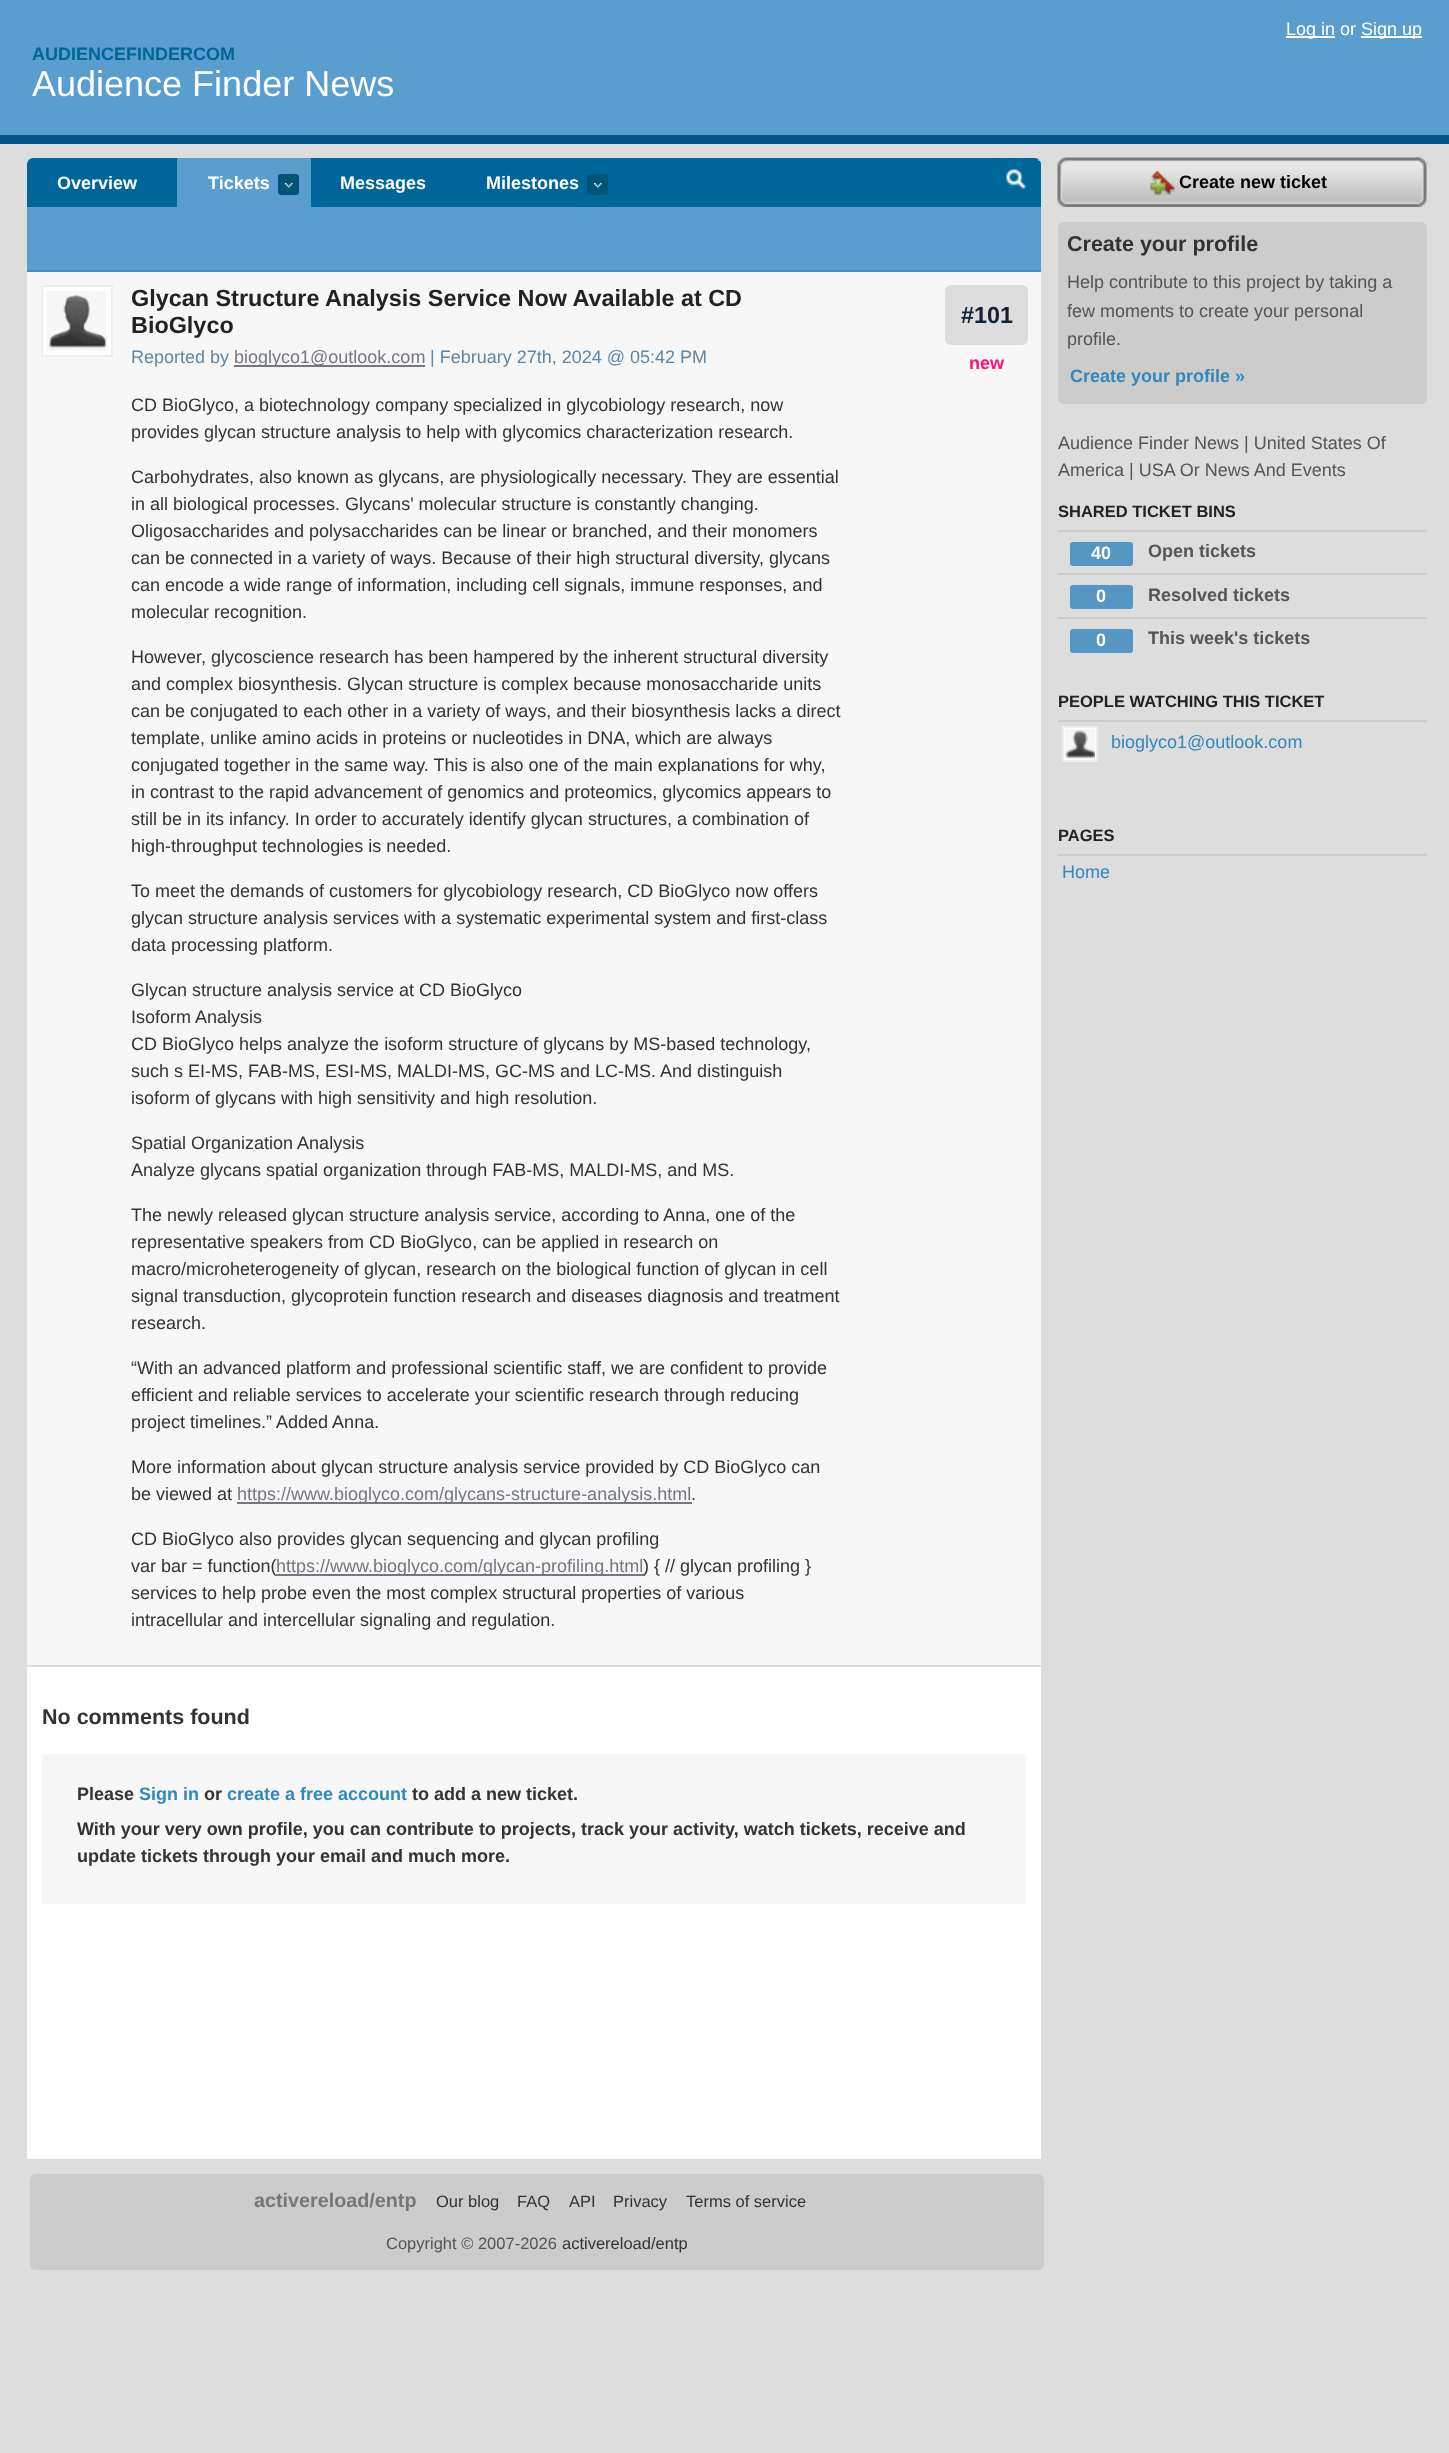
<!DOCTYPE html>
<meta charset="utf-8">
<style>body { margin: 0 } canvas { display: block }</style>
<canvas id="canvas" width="1449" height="2453"></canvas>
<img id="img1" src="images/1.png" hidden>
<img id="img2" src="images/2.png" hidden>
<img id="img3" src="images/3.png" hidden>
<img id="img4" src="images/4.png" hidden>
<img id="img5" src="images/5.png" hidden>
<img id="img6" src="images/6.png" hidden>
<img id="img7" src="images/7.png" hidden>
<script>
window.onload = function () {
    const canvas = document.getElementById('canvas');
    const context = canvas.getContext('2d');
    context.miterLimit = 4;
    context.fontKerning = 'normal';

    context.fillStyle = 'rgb(221, 221, 221)';
    context.fillRect(0, 0, 1449, 2453);
    context.fillStyle = 'rgb(90, 158, 207)';
    context.fillRect(0, 0, 1449, 135);
    context.fillStyle = 'rgb(0, 85, 136)';
    context.fillRect(0, 135, 1449, 9);
    context.fillStyle = 'rgb(255, 255, 255)';
    context.fillRect(1286, 36, 49, 2);
    context.fillRect(1361, 36, 61, 2);
    context.beginPath();
    context.roundRect(27, 158, 1014, 2001, [6, 6, 0, 0]);
    context.fill();
    context.fillStyle = 'rgb(0, 102, 153)';
    context.beginPath();
    context.roundRect(27, 158, 1014, 49, [6, 6, 0, 0]);
    context.fill();
    context.fillStyle = 'rgb(90, 158, 207)';
    context.fillRect(177, 158, 134, 49);
    context.fillStyle = 'rgb(0, 85, 119)';
    context.beginPath();
    context.roundRect(278, 174, 21, 21, 3);
    context.fill();
    context.drawImage(document.getElementById('img1'), 285, 183, 8, 5);
    context.beginPath();
    context.roundRect(587, 174, 21, 21, 3);
    context.fill();
    context.drawImage(document.getElementById('img1'), 594, 183, 8, 5);
    context.fillStyle = 'rgba(214, 214, 214, 0.54)';
    context.fillRect(1038, 158, 3, 3);
    context.drawImage(document.getElementById('img2'), 1006, 169, 21, 21);
    context.fillStyle = 'rgb(90, 158, 207)';
    context.fillRect(27, 207, 1014, 63);
    context.fillStyle = 'rgb(70, 141, 192)';
    context.fillRect(27, 270, 1014, 2);
    context.fillStyle = 'rgb(247, 247, 247)';
    context.fillRect(27, 272, 1014, 1393);
    context.fillStyle = 'rgb(221, 221, 221)';
    context.fillRect(27, 1665, 1014, 2);
    context.fillStyle = 'rgb(255, 255, 255)';
    context.beginPath();
    context.rect(42, 286, 70, 70);
    context.fill();
    context.strokeStyle = 'rgb(238, 238, 238)';
    context.lineWidth = 2;
    context.stroke();
    context.drawImage(document.getElementById('img3'), 46, 291, 61, 60);
    context.fillStyle = 'rgb(116, 119, 128)';
    context.fillRect(234, 365, 191, 2);
    context.fillRect(237, 1502, 455, 2);
    context.fillRect(276, 1574, 368, 2);
    context.fillStyle = 'rgb(221, 221, 221)';
    context.beginPath();
    context.roundRect(945, 285, 83, 60, 6);
    context.fill();
    context.fillStyle = 'rgb(247, 247, 247)';
    context.fillRect(42, 1754, 984, 150);
    context.drawImage(document.getElementById('img4'), 1416, 157, 11, 50);
    context.drawImage(document.getElementById('img5'), 1057, 157, 362, 50);
    context.drawImage(document.getElementById('img6'), 1150, 171, 25, 24);
    context.fillStyle = 'rgb(204, 204, 204)';
    context.beginPath();
    context.roundRect(1058, 222, 369, 182, 6);
    context.fill();
    context.fillRect(1058, 530, 369, 2);
    context.fillStyle = 'rgb(85, 150, 196)';
    context.beginPath();
    context.roundRect(1070, 542, 63, 24, 3);
    context.fill();
    context.fillStyle = 'rgb(204, 204, 204)';
    context.fillRect(1058, 573, 369, 2);
    context.fillStyle = 'rgb(85, 150, 196)';
    context.beginPath();
    context.roundRect(1070, 585, 63, 24, 3);
    context.fill();
    context.fillStyle = 'rgb(204, 204, 204)';
    context.fillRect(1058, 617, 369, 2);
    context.fillStyle = 'rgb(85, 150, 196)';
    context.beginPath();
    context.roundRect(1070, 629, 63, 24, 3);
    context.fill();
    context.fillStyle = 'rgb(204, 204, 204)';
    context.fillRect(1058, 720, 369, 2);
    context.fillStyle = 'rgb(255, 255, 255)';
    context.beginPath();
    context.rect(1063, 727, 34, 34);
    context.fill();
    context.stroke();
    context.drawImage(document.getElementById('img7'), 1065, 729, 30, 30);
    context.fillStyle = 'rgb(204, 204, 204)';
    context.fillRect(1058, 854, 369, 2);
    context.beginPath();
    context.roundRect(30, 2174, 1014, 96, 6);
    context.fill();
    context.font = '18px Liberation Sans';
    context.fillStyle = 'rgb(255, 255, 255)';
    context.fillText('Log in or', 1286, 35);
    context.fillText('Sign up', 1361, 35);
    context.font = 'bold 18px Liberation Sans';
    context.fillStyle = 'rgb(0, 102, 153)';
    context.fillText('AUDIENCEFINDERCOM', 32, 60);
    context.font = '36px Liberation Sans';
    context.fillStyle = 'rgb(255, 255, 255)';
    context.fillText('Audience Finder News', 32, 96);
    context.font = 'bold 18px Liberation Sans';
    context.fillText('Overview', 57, 189);
    context.fillText('Tickets', 208, 189);
    context.fillText('Messages', 340, 189);
    context.fillText('Milestones', 486, 189);
    context.font = 'bold 23.4px Liberation Sans';
    context.fillStyle = 'rgb(34, 34, 34)';
    context.fillText('Glycan Structure Analysis Service Now Available at CD', 131, 306);
    context.fillText('BioGlyco', 131, 333);
    context.font = '18px Liberation Sans';
    context.fillStyle = 'rgb(95, 135, 165)';
    context.fillText('Reported by', 131, 363);
    context.fillStyle = 'rgb(116, 119, 128)';
    context.fillText('bioglyco1@outlook.com', 234, 363);
    context.fillStyle = 'rgb(95, 135, 165)';
    context.fillText('| February 27th, 2024 @ 05:42 PM', 430, 363);
    context.fillStyle = 'rgb(51, 51, 51)';
    context.fillText('CD BioGlyco, a biotechnology company specialized in glycobiology research, now', 131, 411);
    context.fillText('provides glycan structure analysis to help with glycomics characterization research.', 131, 438);
    context.fillText('Carbohydrates, also known as glycans, are physiologically necessary. They are essential', 131, 483);
    context.fillText('in all biological processes. Glycans\' molecular structure is constantly changing.', 131, 510);
    context.fillText('Oligosaccharides and polysaccharides can be linear or branched, and their monomers', 131, 537);
    context.fillText('can be connected in a variety of ways. Because of their high structural diversity, glycans', 131, 564);
    context.fillText('can encode a wide range of information, including cell signals, immune responses, and', 131, 591);
    context.fillText('molecular recognition.', 131, 618);
    context.fillText('However, glycoscience research has been hampered by the inherent structural diversity', 131, 663);
    context.fillText('and complex biosynthesis. Glycan structure is complex because monosaccharide units', 131, 690);
    context.fillText('can be conjugated to each other in a variety of ways, and their biosynthesis lacks a direct', 131, 717);
    context.fillText('template, unlike amino acids in proteins or nucleotides in DNA, which are always', 131, 744);
    context.fillText('conjugated together in the same way. This is also one of the main explanations for why,', 131, 771);
    context.fillText('in contrast to the rapid advancement of genomics and proteomics, glycomics appears to', 131, 798);
    context.fillText('still be in its infancy. In order to accurately identify glycan structures, a combination of', 131, 825);
    context.fillText('high-throughput technologies is needed.', 131, 852);
    context.fillText('To meet the demands of customers for glycobiology research, CD BioGlyco now offers', 131, 897);
    context.fillText('glycan structure analysis services with a systematic experimental system and first-class', 131, 924);
    context.fillText('data processing platform.', 131, 951);
    context.fillText('Glycan structure analysis service at CD BioGlyco', 131, 996);
    context.fillText('Isoform Analysis', 131, 1023);
    context.fillText('CD BioGlyco helps analyze the isoform structure of glycans by MS-based technology,', 131, 1050);
    context.fillText('such s EI-MS, FAB-MS, ESI-MS, MALDI-MS, GC-MS and LC-MS. And distinguish', 131, 1077);
    context.fillText('isoform of glycans with high sensitivity and high resolution.', 131, 1104);
    context.fillText('Spatial Organization Analysis', 131, 1149);
    context.fillText('Analyze glycans spatial organization through FAB-MS, MALDI-MS, and MS.', 131, 1176);
    context.fillText('The newly released glycan structure analysis service, according to Anna, one of the', 131, 1221);
    context.fillText('representative speakers from CD BioGlyco, can be applied in research on', 131, 1248);
    context.fillText('macro/microheterogeneity of glycan, research on the biological function of glycan in cell', 131, 1275);
    context.fillText('signal transduction, glycoprotein function research and diseases diagnosis and treatment', 131, 1302);
    context.fillText('research.', 131, 1329);
    context.fillText('“With an advanced platform and professional scientific staff, we are confident to provide', 131, 1374);
    context.fillText('efficient and reliable services to accelerate your scientific research through reducing', 131, 1401);
    context.fillText('project timelines.” Added Anna.', 131, 1428);
    context.fillText('More information about glycan structure analysis service provided by CD BioGlyco can', 131, 1473);
    context.fillText('be viewed at', 131, 1500);
    context.fillStyle = 'rgb(116, 119, 128)';
    context.fillText('https://www.bioglyco.com/glycans-structure-analysis.html', 237, 1500);
    context.fillStyle = 'rgb(51, 51, 51)';
    context.fillText('.', 691, 1500);
    context.fillText('CD BioGlyco also provides glycan sequencing and glycan profiling', 131, 1545);
    context.fillText('var bar = function(', 131, 1572);
    context.fillStyle = 'rgb(116, 119, 128)';
    context.fillText('https://www.bioglyco.com/glycan-profiling.html', 276, 1572);
    context.fillStyle = 'rgb(51, 51, 51)';
    context.fillText(') { // glycan profiling }', 643, 1572);
    context.fillText('services to help probe even the most complex structural properties of various', 131, 1599);
    context.fillText('intracellular and intercellular signaling and regulation.', 131, 1626);
    context.font = 'bold 23.4px Liberation Sans';
    context.fillStyle = 'rgb(17, 34, 51)';
    context.fillText('#101', 961, 323);
    context.font = 'bold 18px Liberation Sans';
    context.fillStyle = 'rgb(255, 17, 119)';
    context.fillText('new', 969, 369);
    context.font = 'bold 21.5px Liberation Sans';
    context.fillStyle = 'rgb(51, 51, 51)';
    context.fillText('No comments found', 42, 1724);
    context.font = 'bold 18px Liberation Sans';
    context.fillText('Please', 77, 1800);
    context.fillStyle = 'rgb(51, 136, 187)';
    context.fillText('Sign in', 139, 1800);
    context.fillStyle = 'rgb(51, 51, 51)';
    context.fillText('or', 204, 1800);
    context.fillStyle = 'rgb(51, 136, 187)';
    context.fillText('create a free account', 227, 1800);
    context.fillStyle = 'rgb(51, 51, 51)';
    context.fillText('to add a new ticket.', 412, 1800);
    context.fillText('With your very own profile, you can contribute to projects, track your activity, watch tickets, receive and', 77, 1835);
    context.fillText('update tickets through your email and much more.', 77, 1862);
    context.fillStyle = 'rgb(0, 0, 0)';
    context.fillText('Create new ticket', 1179, 188);
    context.font = 'bold 21.5px Liberation Sans';
    context.fillStyle = 'rgb(51, 51, 51)';
    context.fillText('Create your profile', 1067, 251);
    context.font = '18px Liberation Sans';
    context.fillStyle = 'rgb(85, 85, 85)';
    context.fillText('Help contribute to this project by taking a', 1067, 288);
    context.fillText('few moments to create your personal', 1067, 317);
    context.fillText('profile.', 1067, 345);
    context.font = 'bold 18px Liberation Sans';
    context.fillStyle = 'rgb(51, 136, 187)';
    context.fillText('Create your profile »', 1070, 382);
    context.font = '18px Liberation Sans';
    context.fillStyle = 'rgb(85, 85, 85)';
    context.fillText('Audience Finder News | United States Of', 1058, 449);
    context.fillText('America | USA Or News And Events', 1058, 476);
    context.font = 'bold 16.5px Liberation Sans';
    context.fillStyle = 'rgb(34, 34, 34)';
    context.fillText('SHARED TICKET BINS', 1058, 517);
    context.font = 'bold 18px Liberation Sans';
    context.fillStyle = 'rgb(255, 255, 255)';
    context.fillText('40', 1091, 559);
    context.fillStyle = 'rgb(85, 85, 85)';
    context.fillText('Open tickets', 1148, 557);
    context.fillStyle = 'rgb(255, 255, 255)';
    context.fillText('0', 1096, 602);
    context.fillStyle = 'rgb(85, 85, 85)';
    context.fillText('Resolved tickets', 1148, 601);
    context.fillStyle = 'rgb(255, 255, 255)';
    context.fillText('0', 1096, 646);
    context.fillStyle = 'rgb(85, 85, 85)';
    context.fillText('This week\'s tickets', 1148, 644);
    context.font = 'bold 16.5px Liberation Sans';
    context.fillStyle = 'rgb(34, 34, 34)';
    context.fillText('PEOPLE WATCHING THIS TICKET', 1058, 707);
    context.font = '18px Liberation Sans';
    context.fillStyle = 'rgb(51, 136, 187)';
    context.fillText('bioglyco1@outlook.com', 1111, 748);
    context.font = 'bold 16.5px Liberation Sans';
    context.fillStyle = 'rgb(34, 34, 34)';
    context.fillText('PAGES', 1058, 841);
    context.font = '18px Liberation Sans';
    context.fillStyle = 'rgb(51, 136, 187)';
    context.fillText('Home', 1062, 878);
    context.font = 'bold 19.75px Liberation Sans';
    context.fillStyle = 'rgb(119, 119, 119)';
    context.fillText('activereload/entp', 254, 2207);
    context.font = '16.5px Liberation Sans';
    context.fillStyle = 'rgb(51, 51, 51)';
    context.fillText('Our blog', 436, 2207);
    context.fillText('FAQ', 517, 2207);
    context.fillText('API', 569, 2207);
    context.fillText('Privacy', 613, 2207);
    context.fillText('Terms of service', 686, 2207);
    context.fillStyle = 'rgb(85, 85, 85)';
    context.fillText('Copyright © 2007-2026', 386, 2249);
    context.fillStyle = 'rgb(51, 51, 51)';
    context.fillText('activereload/entp', 562, 2249);
};
</script>
